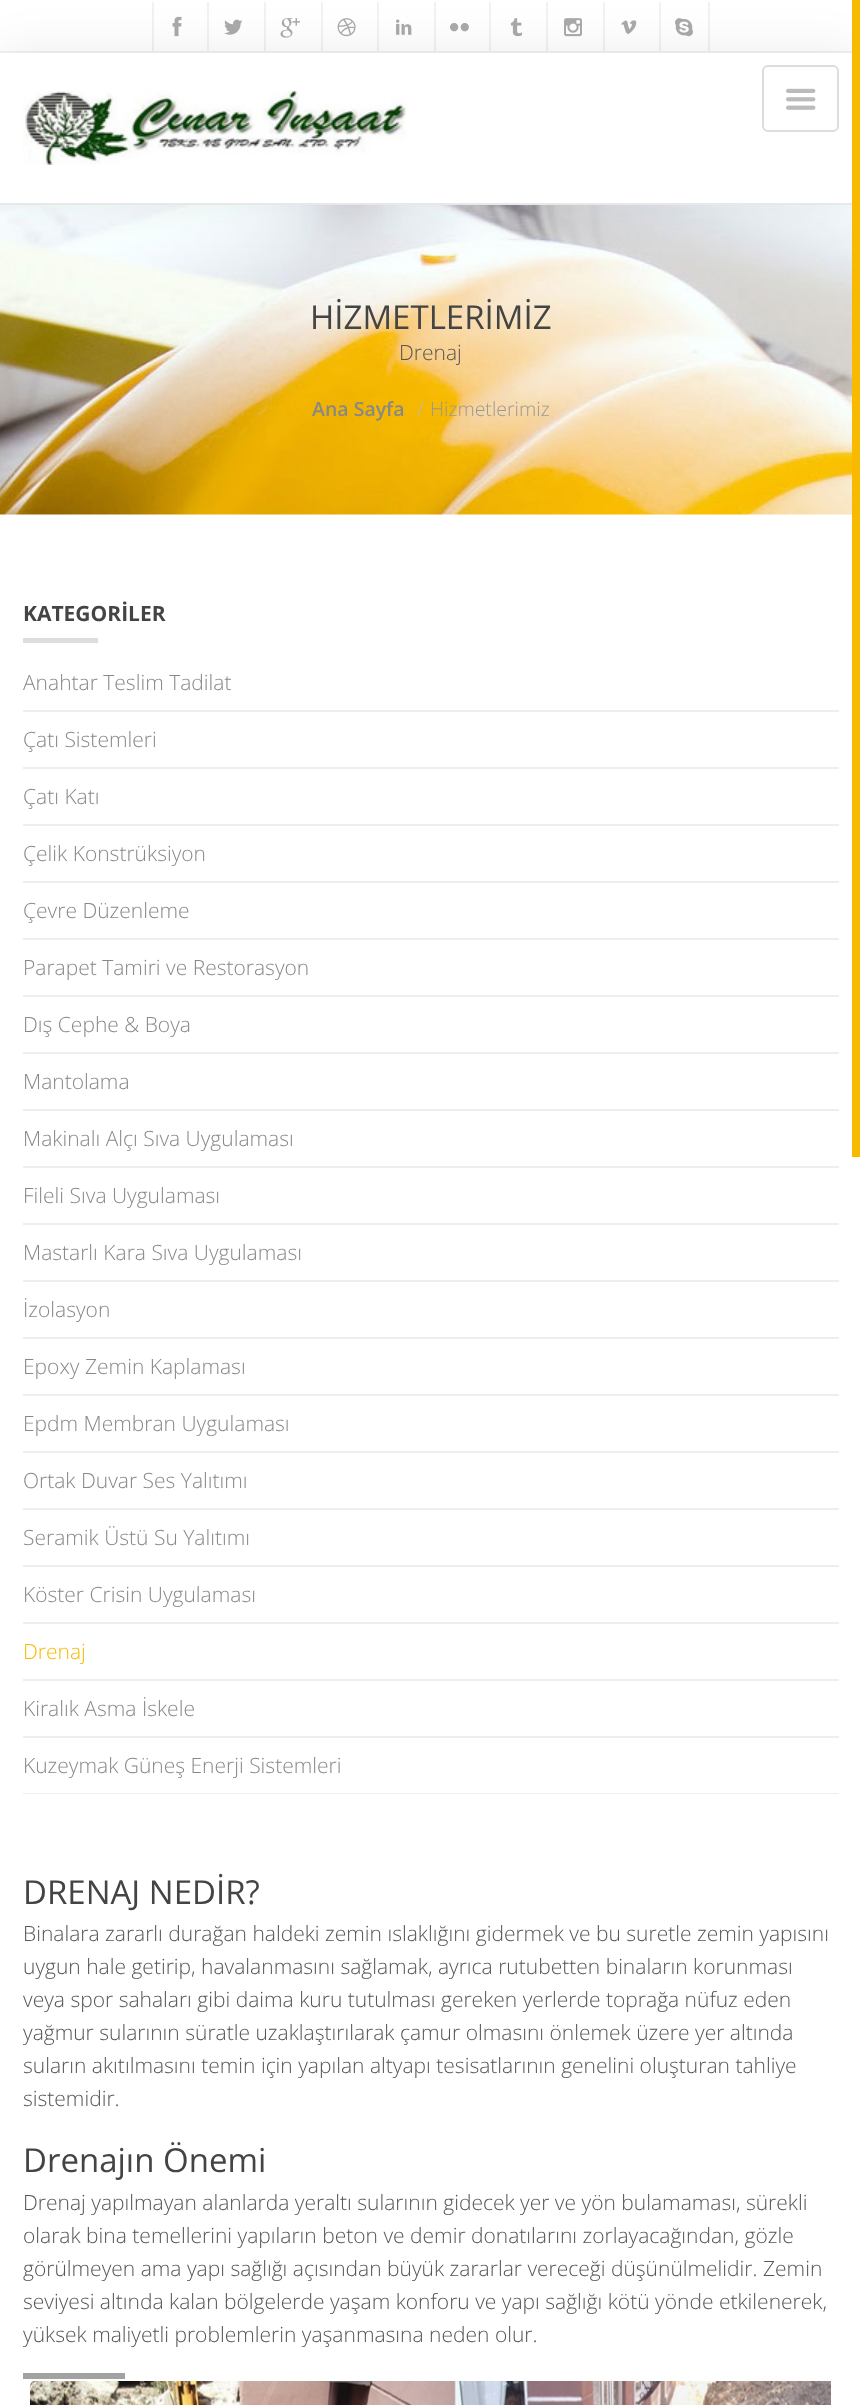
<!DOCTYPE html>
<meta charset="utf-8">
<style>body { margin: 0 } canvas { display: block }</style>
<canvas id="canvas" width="860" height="2405"></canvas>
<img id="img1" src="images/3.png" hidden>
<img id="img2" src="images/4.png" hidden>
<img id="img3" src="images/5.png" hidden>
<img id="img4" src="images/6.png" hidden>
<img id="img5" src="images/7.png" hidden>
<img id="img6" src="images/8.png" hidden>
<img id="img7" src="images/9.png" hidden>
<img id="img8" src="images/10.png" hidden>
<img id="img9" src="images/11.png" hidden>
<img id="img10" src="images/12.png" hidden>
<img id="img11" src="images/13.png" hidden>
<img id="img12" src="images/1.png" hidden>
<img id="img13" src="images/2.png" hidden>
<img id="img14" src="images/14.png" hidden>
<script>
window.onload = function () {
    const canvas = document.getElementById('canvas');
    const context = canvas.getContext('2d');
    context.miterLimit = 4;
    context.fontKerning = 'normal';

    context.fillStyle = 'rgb(255, 255, 255)';
    context.fillRect(0, 0, 860, 2405);
    context.fillStyle = 'rgb(242, 242, 242)';
    context.fillRect(0, 51, 860, 2);
    context.fillRect(152, 2, 2, 49);
    context.drawImage(document.getElementById('img1'), 172, 16, 10, 21);
    context.fillRect(207, 2, 2, 49);
    context.drawImage(document.getElementById('img2'), 224, 19, 19, 16);
    context.fillRect(264, 2, 2, 49);
    context.drawImage(document.getElementById('img3'), 280, 18, 20, 20);
    context.fillRect(321, 2, 2, 49);
    context.drawImage(document.getElementById('img4'), 337, 18, 19, 19);
    context.fillRect(377, 2, 2, 49);
    context.drawImage(document.getElementById('img5'), 396, 19, 16, 16);
    context.fillRect(434, 2, 2, 49);
    context.drawImage(document.getElementById('img6'), 450, 23, 19, 9);
    context.fillRect(489, 2, 2, 49);
    context.drawImage(document.getElementById('img7'), 510, 18, 12, 19);
    context.fillRect(546, 2, 2, 49);
    context.drawImage(document.getElementById('img8'), 564, 18, 18, 19);
    context.fillRect(603, 2, 2, 49);
    context.drawImage(document.getElementById('img9'), 621, 20, 16, 14);
    context.fillRect(708, 2, 2, 49);
    context.fillRect(659, 2, 2, 49);
    context.drawImage(document.getElementById('img10'), 675, 18, 18, 19);
    context.drawImage(document.getElementById('img11'), 0, 205, 852, 310);
    context.save();
    context.beginPath();
    context.moveTo(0, 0);
    context.lineTo(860, 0);
    context.lineTo(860, 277);
    context.lineTo(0, 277);
    context.closePath();
    context.moveTo(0, 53);
    context.lineTo(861, 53);
    context.lineTo(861, 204);
    context.lineTo(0, 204);
    context.closePath();
    context.clip('evenodd');
    context.fillStyle = 'rgba(0, 0, 0, 0.08)';
    context.filter = 'blur(24px)';
    context.beginPath();
    context.rect(0, 53, 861, 151);
    context.fill();
    context.filter = 'none';
    context.restore();
    context.fillStyle = 'rgb(232, 232, 232)';
    context.fillRect(0, 203, 860, 2);
    context.drawImage(document.getElementById('img12'), 22, 90, 385, 75);
    context.beginPath();
    context.roundRect(763, 66, 75, 65, 5);
    context.strokeStyle = 'rgb(221, 221, 221)';
    context.lineWidth = 2;
    context.stroke();
    context.drawImage(document.getElementById('img13'), 786, 88, 30, 22);
    context.fillStyle = 'rgb(221, 221, 221)';
    context.fillRect(23, 638, 75, 5);
    context.fillStyle = 'rgb(238, 238, 238)';
    context.fillRect(23, 710, 816, 2);
    context.fillRect(23, 767, 816, 2);
    context.fillRect(23, 824, 816, 2);
    context.fillRect(23, 881, 816, 2);
    context.fillRect(23, 938, 816, 2);
    context.fillRect(23, 995, 816, 2);
    context.fillRect(23, 1052, 816, 2);
    context.fillRect(23, 1109, 816, 2);
    context.fillRect(23, 1166, 816, 2);
    context.fillRect(23, 1223, 816, 2);
    context.fillRect(23, 1280, 816, 2);
    context.fillRect(23, 1337, 816, 2);
    context.fillRect(23, 1394, 816, 2);
    context.fillRect(23, 1451, 816, 2);
    context.fillRect(23, 1508, 816, 2);
    context.fillRect(23, 1565, 816, 2);
    context.fillRect(23, 1622, 816, 2);
    context.fillRect(23, 1679, 816, 2);
    context.fillRect(23, 1736, 816, 2);
    context.fillRect(23, 1793, 816, 1);
    context.fillStyle = 'rgb(162, 162, 162)';
    context.fillRect(23, 2373, 102, 6);
    context.drawImage(document.getElementById('img14'), 30, 2381, 801, 24);
    context.fillStyle = 'rgb(248, 186, 1)';
    context.fillRect(852, 0, 8, 1157);
    context.font = '33px Open Sans';
    context.fillStyle = 'rgb(68, 68, 68)';
    context.fillText('HİZMETLERİMİZ', 310, 329);
    context.font = '300 21px Open Sans';
    context.fillStyle = 'rgb(85, 85, 85)';
    context.fillText('Drenaj', 399, 360);
    context.font = '600 19.5px Open Sans';
    context.fillStyle = 'rgb(136, 136, 136)';
    context.fillText('Ana Sayfa', 312, 416);
    context.font = '300 19.5px Open Sans';
    context.fillStyle = 'rgb(187, 187, 187)';
    context.fillText('/', 417, 416);
    context.fillStyle = 'rgb(153, 153, 153)';
    context.fillText('Hizmetlerimiz', 430, 416);
    context.font = 'bold 21px Open Sans';
    context.fillStyle = 'rgb(68, 68, 68)';
    context.fillText('KATEGORİLER', 23, 621);
    context.font = '300 21px Open Sans';
    context.fillStyle = 'rgb(136, 136, 136)';
    context.fillText('Anahtar Teslim Tadilat', 23, 690);
    context.fillText('Çatı Sistemleri', 23, 747);
    context.fillText('Çatı Katı', 23, 804);
    context.fillText('Çelik Konstrüksiyon', 23, 861);
    context.fillText('Çevre Düzenleme', 23, 918);
    context.fillText('Parapet Tamiri ve Restorasyon', 23, 975);
    context.fillText('Dış Cephe & Boya', 23, 1032);
    context.fillText('Mantolama', 23, 1089);
    context.fillText('Makinalı Alçı Sıva Uygulaması', 23, 1146);
    context.fillText('Fileli Sıva Uygulaması', 23, 1203);
    context.fillText('Mastarlı Kara Sıva Uygulaması', 23, 1260);
    context.fillText('İzolasyon', 23, 1317);
    context.fillText('Epoxy Zemin Kaplaması', 23, 1374);
    context.fillText('Epdm Membran Uygulaması', 23, 1431);
    context.fillText('Ortak Duvar Ses Yalıtımı', 23, 1488);
    context.fillText('Seramik Üstü Su Yalıtımı', 23, 1545);
    context.fillText('Köster Crisin Uygulaması', 23, 1602);
    context.fillStyle = 'rgb(248, 186, 1)';
    context.fillText('Drenaj', 23, 1659);
    context.fillStyle = 'rgb(136, 136, 136)';
    context.fillText('Kiralık Asma İskele', 23, 1716);
    context.fillText('Kuzeymak Güneş Enerji Sistemleri', 23, 1773);
    context.font = '33px Open Sans';
    context.fillStyle = 'rgb(68, 68, 68)';
    context.fillText('DRENAJ NEDİR?', 23, 1904);
    context.font = '300 21px Open Sans';
    context.fillStyle = 'rgb(85, 85, 85)';
    context.fillText('Binalara zararlı durağan haldeki zemin ıslaklığını gidermek ve bu suretle zemin yapısını', 23, 1941);
    context.fillText('uygun hale getirip, havalanmasını sağlamak, ayrıca rutubetten binaların korunması', 23, 1974);
    context.fillText('veya spor sahaları gibi daima kuru tutulması gereken yerlerde toprağa nüfuz eden', 23, 2007);
    context.fillText('yağmur sularının süratle uzaklaştırılarak çamur olmasını önlemek üzere yer altında', 23, 2040);
    context.fillText('suların akıtılmasını temin için yapılan altyapı tesisatlarının genelini oluşturan tahliye', 23, 2073);
    context.fillText('sistemidir.', 23, 2106);
    context.font = '33px Open Sans';
    context.fillStyle = 'rgb(68, 68, 68)';
    context.fillText('Drenajın Önemi', 23, 2172);
    context.font = '300 21px Open Sans';
    context.fillStyle = 'rgb(85, 85, 85)';
    context.fillText('Drenaj yapılmayan alanlarda yeraltı sularının gidecek yer ve yön bulamaması, sürekli', 23, 2210);
    context.fillText('olarak bina temellerini yapıların beton ve demir donatılarını zorlayacağından, gözle', 23, 2243);
    context.fillText('görülmeyen ama yapı sağlığı açısından büyük zararlar vereceği düşünülmelidir. Zemin', 23, 2276);
    context.fillText('seviyesi altında kalan bölgelerde yaşam konforu ve yapı sağlığı kötü yönde etkilenerek,', 23, 2309);
    context.fillText('yüksek maliyetli problemlerin yaşanmasına neden olur.', 23, 2342);
};
</script>
